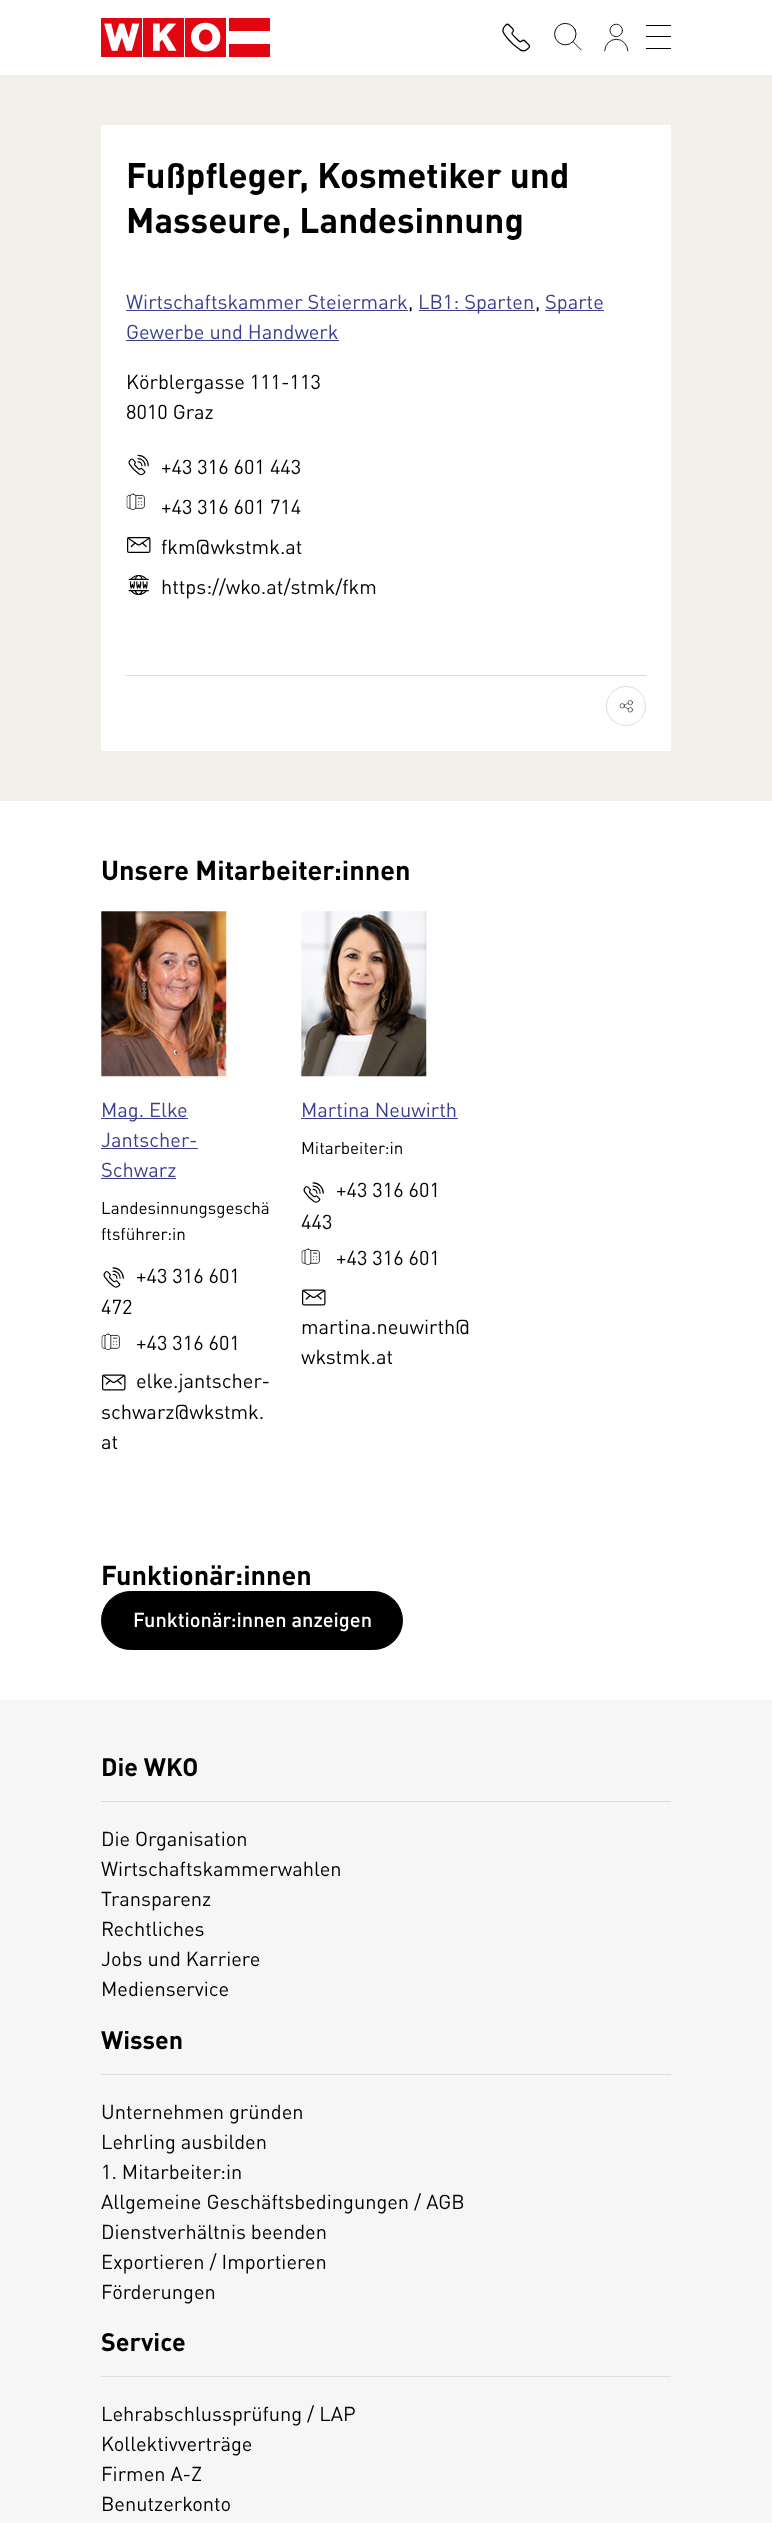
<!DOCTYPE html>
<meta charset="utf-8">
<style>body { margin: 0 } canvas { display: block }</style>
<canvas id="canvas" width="772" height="2523"></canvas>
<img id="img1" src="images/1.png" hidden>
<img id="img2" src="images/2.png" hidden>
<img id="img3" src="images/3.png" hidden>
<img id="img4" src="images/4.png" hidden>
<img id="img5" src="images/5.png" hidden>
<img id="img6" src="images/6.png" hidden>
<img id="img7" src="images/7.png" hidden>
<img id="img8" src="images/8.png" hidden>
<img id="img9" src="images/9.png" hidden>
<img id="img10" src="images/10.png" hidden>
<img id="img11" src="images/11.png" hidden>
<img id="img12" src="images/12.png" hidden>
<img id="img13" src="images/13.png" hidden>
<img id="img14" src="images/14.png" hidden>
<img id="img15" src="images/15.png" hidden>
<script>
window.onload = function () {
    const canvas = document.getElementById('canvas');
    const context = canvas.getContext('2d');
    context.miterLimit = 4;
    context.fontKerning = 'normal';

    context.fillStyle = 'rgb(255, 255, 255)';
    context.fillRect(0, 0, 772, 2523);
    context.drawImage(document.getElementById('img1'), 101, 18, 169, 39);
    context.drawImage(document.getElementById('img2'), 502, 23, 29, 29);
    context.drawImage(document.getElementById('img3'), 554, 22, 29, 29);
    context.drawImage(document.getElementById('img4'), 604, 23, 25, 29);
    context.fillStyle = 'rgb(0, 0, 0)';
    context.fillRect(646, 25, 25, 1);
    context.fillRect(646, 36, 25, 1);
    context.fillRect(646, 48, 25, 1);
    context.fillStyle = 'rgb(242, 240, 234)';
    context.fillRect(0, 75, 772, 726);
    context.fillStyle = 'rgb(255, 255, 255)';
    context.fillRect(101, 125, 570, 626);
    context.fillStyle = 'rgb(61, 63, 140)';
    context.fillRect(126, 310, 282, 1);
    context.fillRect(419, 310, 116, 1);
    context.fillRect(545, 310, 59, 1);
    context.fillRect(126, 340, 213, 1);
    context.drawImage(document.getElementById('img5'), 128, 454, 21, 22);
    context.drawImage(document.getElementById('img6'), 126, 493, 19, 17);
    context.drawImage(document.getElementById('img7'), 127, 537, 24, 16);
    context.drawImage(document.getElementById('img8'), 128, 575, 21, 20);
    context.fillStyle = 'rgb(221, 221, 221)';
    context.fillRect(126, 675, 520, 1);
    context.beginPath();
    context.arc(626, 706, 19.5, 0, 2 * Math.PI);
    context.strokeStyle = 'rgb(221, 221, 221)';
    context.stroke();
    context.drawImage(document.getElementById('img9'), 619, 699, 14, 14);
    context.drawImage(document.getElementById('img10'), 101, 911, 126, 166);
    context.fillStyle = 'rgb(61, 63, 140)';
    context.fillRect(101, 1118, 87, 1);
    context.fillRect(101, 1148, 97, 1);
    context.fillRect(101, 1178, 75, 1);
    context.drawImage(document.getElementById('img11'), 103, 1267, 21, 21);
    context.drawImage(document.getElementById('img12'), 101, 1333, 19, 17);
    context.drawImage(document.getElementById('img13'), 102, 1374, 24, 17);
    context.drawImage(document.getElementById('img14'), 301, 911, 126, 166);
    context.fillRect(301, 1118, 157, 1);
    context.drawImage(document.getElementById('img15'), 303, 1182, 21, 21);
    context.drawImage(document.getElementById('img12'), 301, 1248, 19, 17);
    context.drawImage(document.getElementById('img13'), 302, 1289, 24, 17);
    context.fillStyle = 'rgb(0, 0, 0)';
    context.beginPath();
    context.roundRect(101.5, 1591.5, 301, 58, 29);
    context.fill();
    context.strokeStyle = 'rgb(0, 0, 0)';
    context.stroke();
    context.fillStyle = 'rgb(246, 246, 246)';
    context.fillRect(0, 1700, 772, 823);
    context.fillStyle = 'rgb(221, 221, 221)';
    context.fillRect(101, 1801, 570, 1);
    context.fillRect(101, 2074, 570, 1);
    context.fillRect(101, 2376, 570, 1);
    context.font = 'bold 35px DIN';
    context.fillStyle = 'rgb(0, 0, 0)';
    context.fillText('Fußpfleger, Kosmetiker und', 126, 188);
    context.fillText('Masseure, Landesinnung', 126, 233);
    context.font = '20px DIN';
    context.fillStyle = 'rgb(61, 63, 140)';
    context.fillText('Wirtschaftskammer Steiermark', 126, 309);
    context.fillStyle = 'rgb(0, 0, 0)';
    context.fillText(',', 408, 309);
    context.fillStyle = 'rgb(61, 63, 140)';
    context.fillText('LB1: Sparten', 418, 309);
    context.fillStyle = 'rgb(0, 0, 0)';
    context.fillText(',', 535, 309);
    context.fillStyle = 'rgb(61, 63, 140)';
    context.fillText('Sparte', 545, 309);
    context.fillText('Gewerbe und Handwerk', 126, 339);
    context.fillStyle = 'rgb(0, 0, 0)';
    context.fillText('Körblergasse 111-113', 126, 389);
    context.fillText('8010 Graz', 126, 419);
    context.fillText('+43 316 601 443', 161, 474);
    context.fillText('+43 316 601 714', 161, 514);
    context.fillText('fkm@wkstmk.at', 161, 554);
    context.fillText('https://wko.at/stmk/fkm', 161, 594);
    context.font = 'bold 27px DIN';
    context.fillText('Unsere Mitarbeiter:innen', 101, 880);
    context.font = '20px DIN';
    context.fillStyle = 'rgb(61, 63, 140)';
    context.fillText('Mag. Elke', 101, 1117);
    context.fillText('Jantscher-', 101, 1147);
    context.fillText('Schwarz', 101, 1177);
    context.font = '17px DIN';
    context.fillStyle = 'rgb(0, 0, 0)';
    context.fillText('Landesinnungsgeschä', 101, 1214);
    context.fillText('ftsführer:in', 101, 1240);
    context.font = '20px DIN';
    context.fillText('+43 316 601', 136, 1283);
    context.fillText('472', 101, 1314);
    context.fillText('+43 316 601', 136, 1350);
    context.fillText('elke.jantscher-', 136, 1388);
    context.fillText('schwarz@wkstmk.', 101, 1419);
    context.fillText('at', 101, 1449);
    context.fillStyle = 'rgb(61, 63, 140)';
    context.fillText('Martina Neuwirth', 301, 1117);
    context.font = '17px DIN';
    context.fillStyle = 'rgb(0, 0, 0)';
    context.fillText('Mitarbeiter:in', 301, 1154);
    context.font = '20px DIN';
    context.fillText('+43 316 601', 336, 1197);
    context.fillText('443', 301, 1229);
    context.fillText('+43 316 601', 336, 1265);
    context.fillText('martina.neuwirth@', 301, 1334);
    context.fillText('wkstmk.at', 301, 1364);
    context.font = 'bold 27px DIN';
    context.fillText('Funktionär:innen', 101, 1585);
    context.font = '500 20px DIN';
    context.fillStyle = 'rgb(255, 255, 255)';
    context.fillText('Funktionär:innen anzeigen', 133, 1627);
    context.font = 'bold 25px DIN';
    context.fillStyle = 'rgb(0, 0, 0)';
    context.fillText('Die WKO', 101, 1776);
    context.font = '20px DIN';
    context.fillText('Die Organisation', 101, 1846);
    context.fillText('Wirtschaftskammerwahlen', 101, 1876);
    context.fillText('Transparenz', 101, 1906);
    context.fillText('Rechtliches', 101, 1936);
    context.fillText('Jobs und Karriere', 101, 1966);
    context.fillText('Medienservice', 101, 1996);
    context.font = 'bold 25px DIN';
    context.fillText('Wissen', 101, 2049);
    context.font = '20px DIN';
    context.fillText('Unternehmen gründen', 101, 2119);
    context.fillText('Lehrling ausbilden', 101, 2149);
    context.fillText('1. Mitarbeiter:in', 101, 2179);
    context.fillText('Allgemeine Geschäftsbedingungen / AGB', 101, 2209);
    context.fillText('Dienstverhältnis beenden', 101, 2239);
    context.fillText('Exportieren / Importieren', 101, 2269);
    context.fillText('Förderungen', 101, 2299);
    context.font = 'bold 25px DIN';
    context.fillText('Service', 101, 2351);
    context.font = '20px DIN';
    context.fillText('Lehrabschlussprüfung / LAP', 101, 2421);
    context.fillText('Kollektivverträge', 101, 2451);
    context.fillText('Firmen A-Z', 101, 2481);
    context.fillText('Benutzerkonto', 101, 2511);
};
</script>
